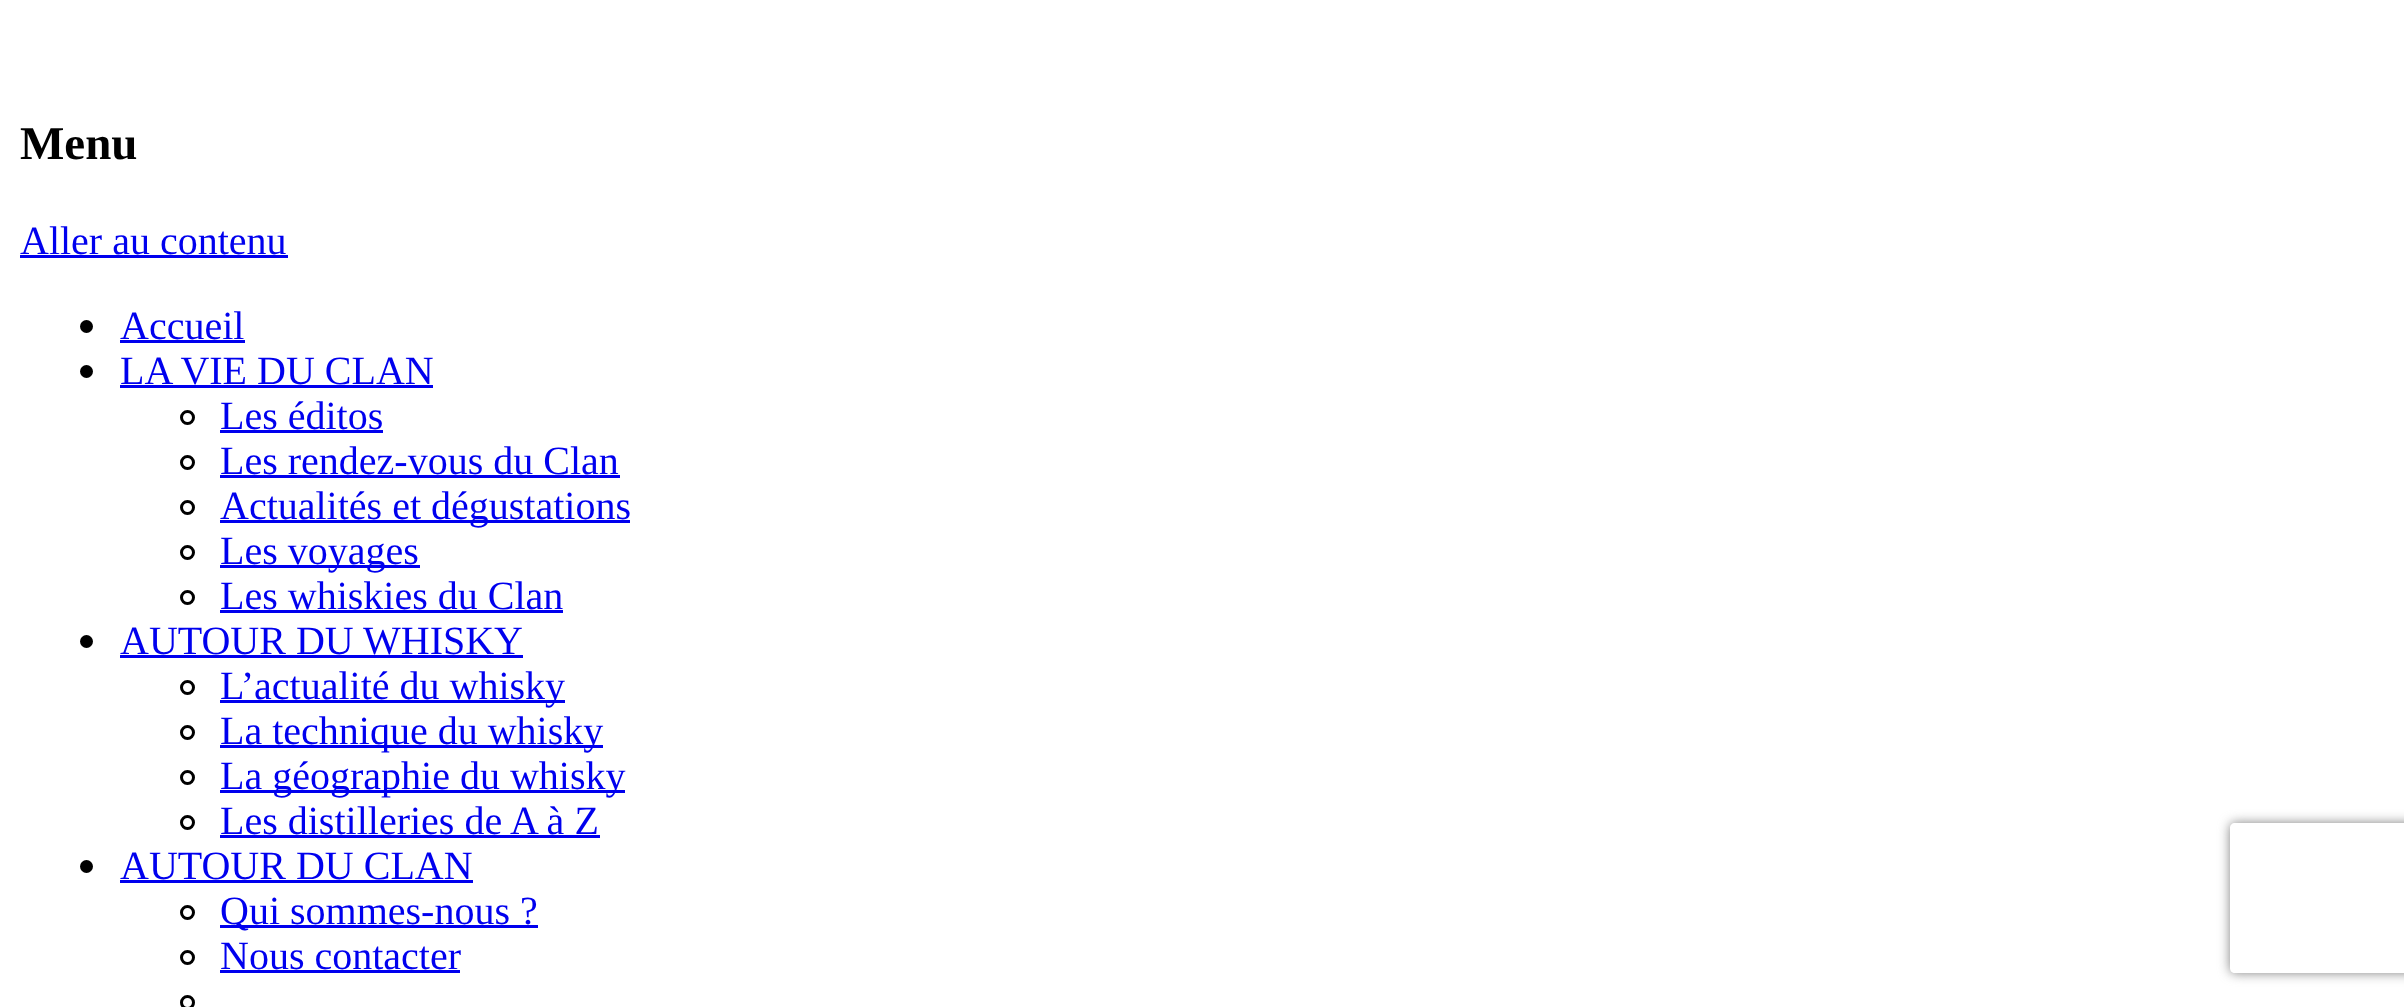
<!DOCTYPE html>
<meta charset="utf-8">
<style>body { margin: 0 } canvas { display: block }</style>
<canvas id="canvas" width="2404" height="1007"></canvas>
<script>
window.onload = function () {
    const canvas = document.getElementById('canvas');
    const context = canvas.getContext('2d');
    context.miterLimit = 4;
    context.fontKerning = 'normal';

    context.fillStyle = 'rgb(255, 255, 255)';
    context.fillRect(0, 0, 2404, 1007);
    context.fillStyle = 'rgb(0, 0, 238)';
    context.fillRect(20, 255, 268, 3);
    context.fillStyle = 'rgb(0, 0, 0)';
    context.beginPath();
    context.arc(86.5, 326.5, 6.5, 0, 2 * Math.PI);
    context.fill();
    context.fillStyle = 'rgb(0, 0, 238)';
    context.fillRect(120, 340, 125, 3);
    context.fillStyle = 'rgb(0, 0, 0)';
    context.beginPath();
    context.arc(86.5, 371.5, 6.5, 0, 2 * Math.PI);
    context.fill();
    context.fillStyle = 'rgb(0, 0, 238)';
    context.fillRect(120, 385, 313, 3);
    context.beginPath();
    context.arc(187.5, 417.5, 6, 0, 2 * Math.PI);
    context.strokeStyle = 'rgb(0, 0, 0)';
    context.lineWidth = 3;
    context.stroke();
    context.fillRect(220, 430, 163, 3);
    context.beginPath();
    context.arc(187.5, 462.5, 6, 0, 2 * Math.PI);
    context.stroke();
    context.fillRect(220, 475, 400, 3);
    context.beginPath();
    context.arc(187.5, 507.5, 6, 0, 2 * Math.PI);
    context.stroke();
    context.fillRect(220, 520, 410, 3);
    context.beginPath();
    context.arc(187.5, 552.5, 6, 0, 2 * Math.PI);
    context.stroke();
    context.fillRect(220, 565, 200, 3);
    context.beginPath();
    context.arc(187.5, 597.5, 6, 0, 2 * Math.PI);
    context.stroke();
    context.fillRect(220, 610, 343, 3);
    context.fillStyle = 'rgb(0, 0, 0)';
    context.beginPath();
    context.arc(86.5, 641.5, 6.5, 0, 2 * Math.PI);
    context.fill();
    context.fillStyle = 'rgb(0, 0, 238)';
    context.fillRect(120, 655, 403, 3);
    context.beginPath();
    context.arc(187.5, 687.5, 6, 0, 2 * Math.PI);
    context.stroke();
    context.fillRect(220, 700, 345, 3);
    context.beginPath();
    context.arc(187.5, 732.5, 6, 0, 2 * Math.PI);
    context.stroke();
    context.fillRect(220, 745, 383, 3);
    context.beginPath();
    context.arc(187.5, 777.5, 6, 0, 2 * Math.PI);
    context.stroke();
    context.fillRect(220, 790, 405, 3);
    context.beginPath();
    context.arc(187.5, 822.5, 6, 0, 2 * Math.PI);
    context.stroke();
    context.fillRect(220, 835, 380, 3);
    context.fillStyle = 'rgb(0, 0, 0)';
    context.beginPath();
    context.arc(86.5, 866.5, 6.5, 0, 2 * Math.PI);
    context.fill();
    context.fillStyle = 'rgb(0, 0, 238)';
    context.fillRect(120, 880, 353, 3);
    context.beginPath();
    context.arc(187.5, 912.5, 6, 0, 2 * Math.PI);
    context.stroke();
    context.fillRect(220, 925, 318, 3);
    context.beginPath();
    context.arc(187.5, 957.5, 6, 0, 2 * Math.PI);
    context.stroke();
    context.fillRect(220, 970, 240, 3);
    context.beginPath();
    context.arc(187.5, 1002.5, 6, 0, 2 * Math.PI);
    context.stroke();
    context.save();
    context.beginPath();
    context.moveTo(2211, 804);
    context.lineTo(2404, 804);
    context.lineTo(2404, 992);
    context.lineTo(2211, 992);
    context.closePath();
    context.moveTo(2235, 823);
    context.lineTo(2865, 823);
    context.bezierCurveTo(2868, 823, 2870, 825, 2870, 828);
    context.lineTo(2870, 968);
    context.bezierCurveTo(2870, 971, 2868, 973, 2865, 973);
    context.lineTo(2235, 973);
    context.bezierCurveTo(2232, 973, 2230, 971, 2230, 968);
    context.lineTo(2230, 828);
    context.bezierCurveTo(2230, 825, 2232, 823, 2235, 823);
    context.closePath();
    context.clip('evenodd');
    context.fillStyle = 'rgb(128, 128, 128)';
    context.filter = 'blur(6px)';
    context.beginPath();
    context.roundRect(2230, 823, 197, 150, 5);
    context.fill();
    context.filter = 'none';
    context.restore();
    context.font = 'bold 47px Liberation Serif';
    context.fillStyle = 'rgb(0, 0, 0)';
    context.fillText('Menu', 20, 159);
    context.font = '40px Liberation Serif';
    context.fillStyle = 'rgb(0, 0, 238)';
    context.fillText('Aller au contenu', 20, 254);
    context.fillText('Accueil', 120, 339);
    context.fillText('LA VIE DU CLAN', 120, 384);
    context.fillText('Les éditos', 220, 429);
    context.fillText('Les rendez-vous du Clan', 220, 474);
    context.fillText('Actualités et dégustations', 220, 519);
    context.fillText('Les voyages', 220, 564);
    context.fillText('Les whiskies du Clan', 220, 609);
    context.fillText('AUTOUR DU WHISKY', 120, 654);
    context.fillText('L’actualité du whisky', 220, 699);
    context.fillText('La technique du whisky', 220, 744);
    context.fillText('La géographie du whisky', 220, 789);
    context.fillText('Les distilleries de A à Z', 220, 834);
    context.fillText('AUTOUR DU CLAN', 120, 879);
    context.fillText('Qui sommes-nous ?', 220, 924);
    context.fillText('Nous contacter', 220, 969);
};
</script>
